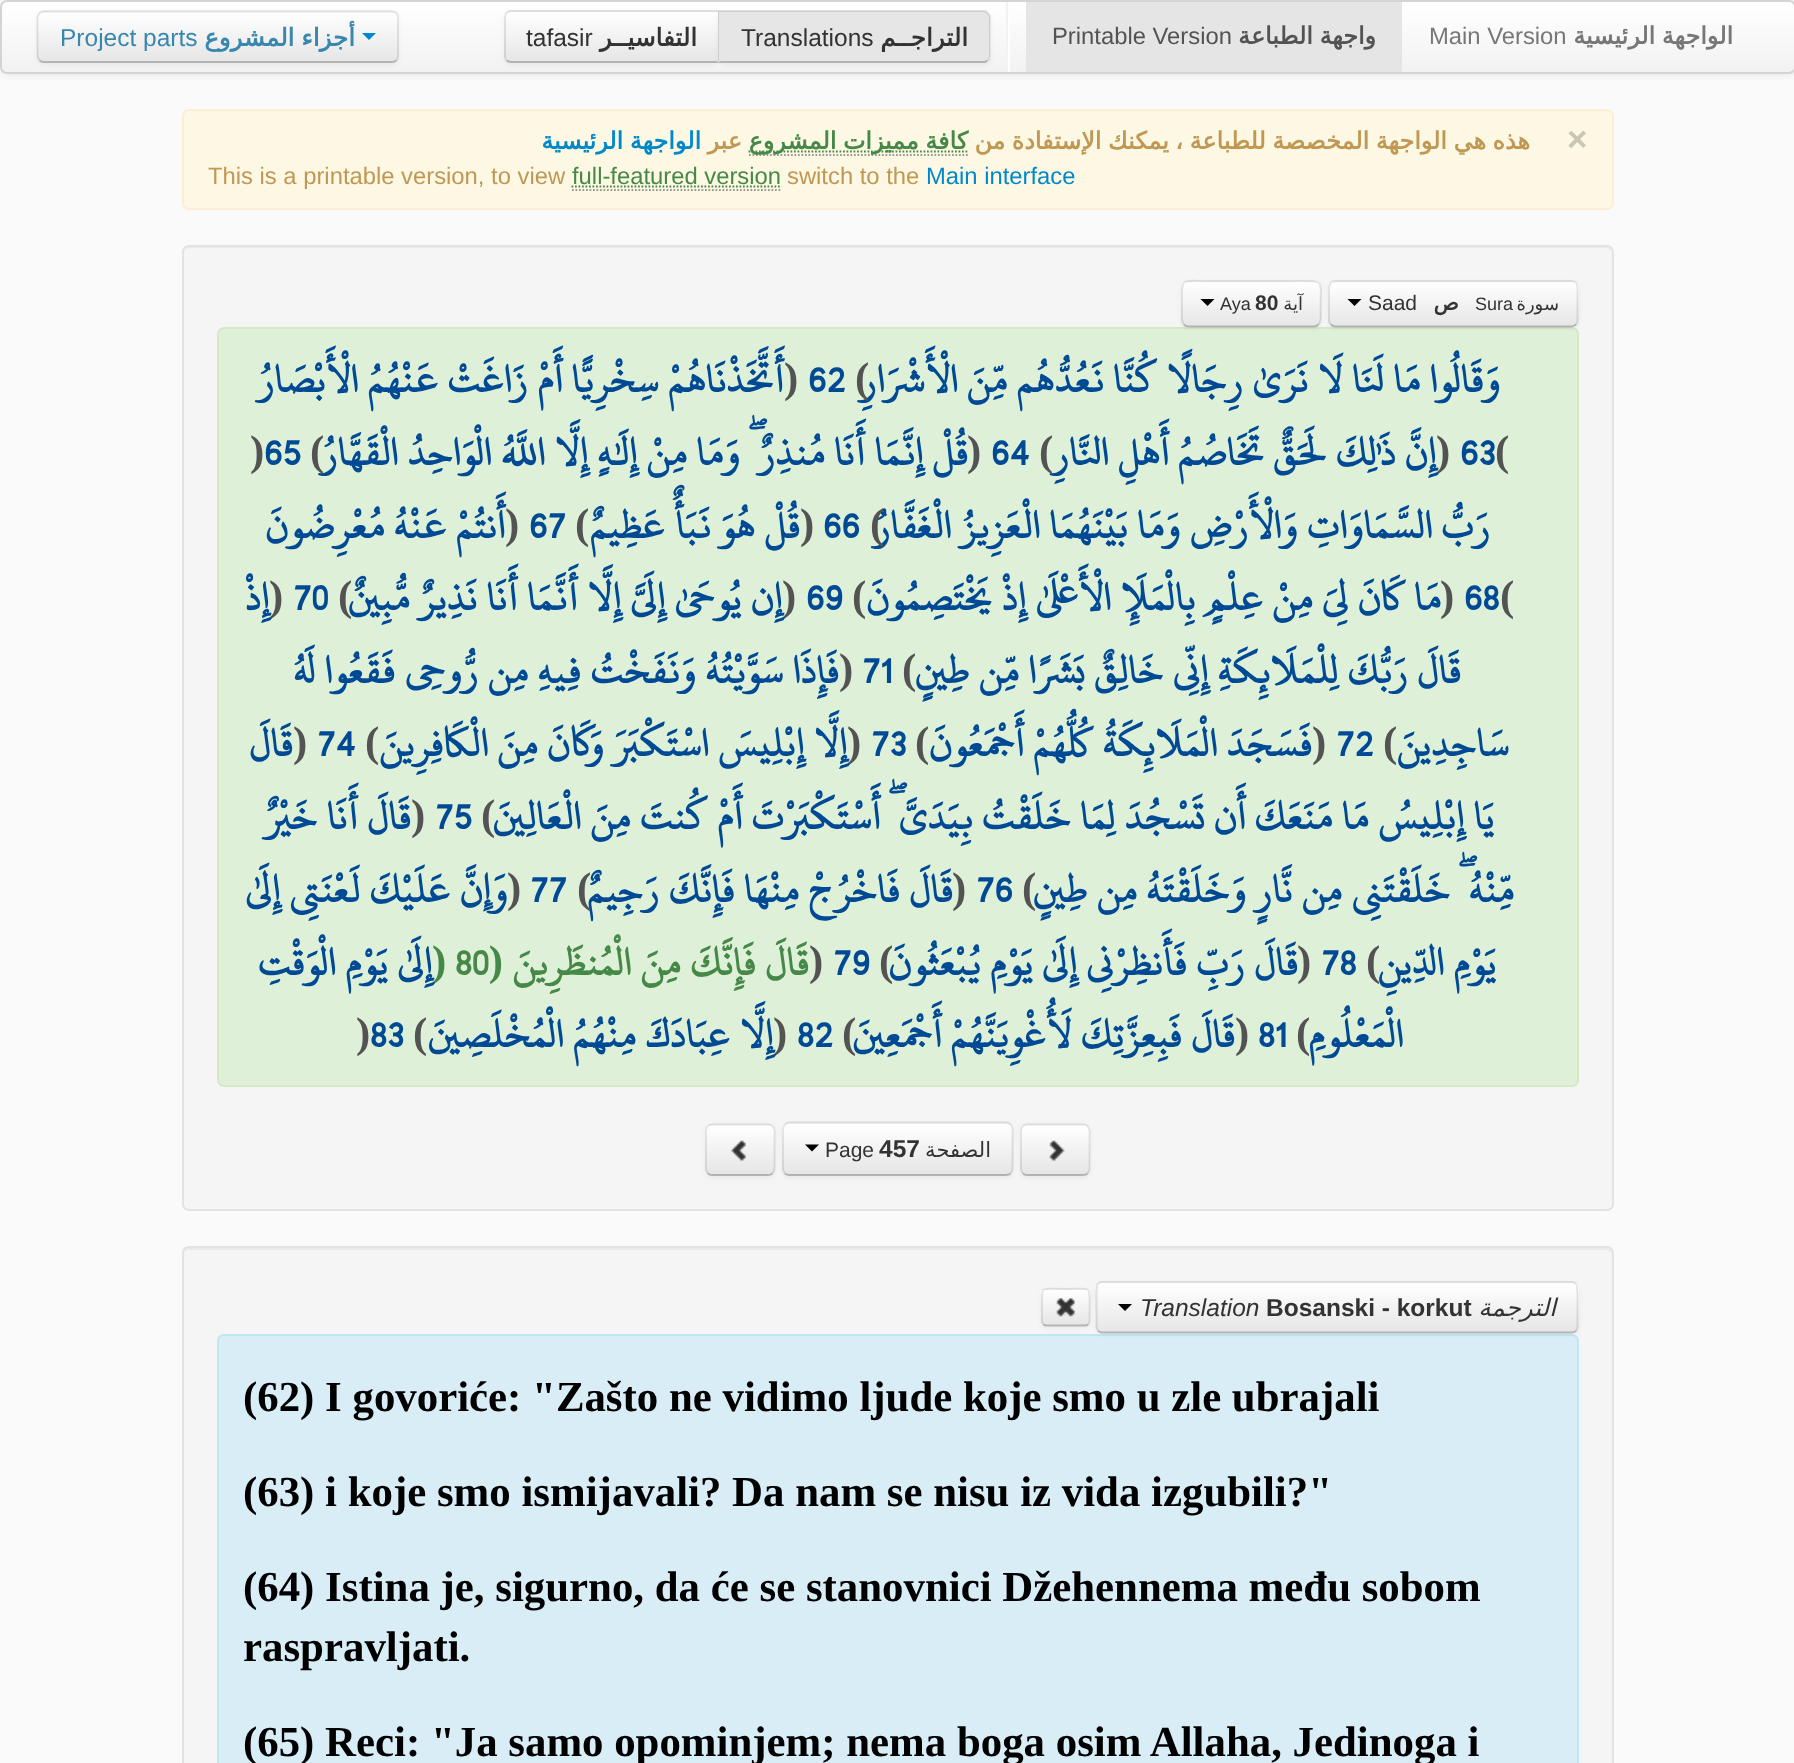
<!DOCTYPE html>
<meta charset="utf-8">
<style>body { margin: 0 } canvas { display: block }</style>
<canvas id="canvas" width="1794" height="1763"></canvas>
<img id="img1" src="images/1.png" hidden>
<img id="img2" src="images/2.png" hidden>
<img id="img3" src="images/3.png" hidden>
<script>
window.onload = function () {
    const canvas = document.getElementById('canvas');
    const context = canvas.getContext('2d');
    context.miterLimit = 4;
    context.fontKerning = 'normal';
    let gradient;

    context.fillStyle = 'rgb(250, 250, 250)';
    context.fillRect(0, 0, 1794, 1763);
    context.fillStyle = 'rgba(0, 0, 0, 0.07)';
    context.filter = 'blur(3.5px)';
    context.beginPath();
    context.roundRect(0, 2, 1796, 73, 7);
    context.fill();
    context.filter = 'none';
    context.save();
    context.beginPath();
    context.roundRect(0, 0, 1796, 74, 7);
    context.clip();
    gradient = context.createLinearGradient(898, 1.7, 898, 72);
    gradient.addColorStop(0, 'rgb(255, 255, 255)');
    gradient.addColorStop(1, 'rgb(242, 242, 242)');
    context.fillStyle = gradient;
    context.fillRect(0, 2, 1794, 70);
    context.restore();
    context.beginPath();
    context.roundRect(1, 1, 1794, 72, 6);
    context.strokeStyle = 'rgb(212, 212, 212)';
    context.lineWidth = 2;
    context.stroke();
    context.fillStyle = 'rgb(229, 229, 229)';
    context.fillRect(1026, 2, 376, 70);
    context.fillStyle = 'rgb(255, 255, 255)';
    context.fillRect(1008, 15, 2, 57);
    context.fillStyle = 'rgb(242, 242, 242)';
    context.fillRect(1006, 2, 2, 56);
    context.fillStyle = 'rgba(0, 0, 0, 0.05)';
    context.filter = 'blur(2px)';
    context.beginPath();
    context.roundRect(504, 12, 215, 53, 7);
    context.fill();
    context.filter = 'none';
    context.fillStyle = 'rgb(245, 245, 245)';
    context.beginPath();
    context.roundRect(504, 11, 215, 52, [7, 0, 0, 7]);
    context.fill();
    context.save();
    context.beginPath();
    context.roundRect(504, 11, 215, 52, [7, 0, 0, 7]);
    context.clip();
    gradient = context.createLinearGradient(612, 12, 612, 61);
    gradient.addColorStop(0, 'rgb(255, 255, 255)');
    gradient.addColorStop(1, 'rgb(230, 230, 230)');
    context.fillStyle = gradient;
    context.fillRect(504, 12, 214, 49);
    context.restore();
    context.fillStyle = 'rgba(0, 0, 0, 0.1)';
    context.beginPath();
    context.moveTo(511, 12);
    context.bezierCurveTo(510, 12, 508, 13, 507, 14);
    context.lineTo(506, 12);
    context.lineTo(509, 10);
    context.lineTo(719, 10);
    context.lineTo(718, 12);
    context.closePath();
    context.fill();
    context.fillStyle = 'rgb(179, 179, 179)';
    context.beginPath();
    context.moveTo(511, 63);
    context.lineTo(719, 63);
    context.lineTo(717, 61);
    context.lineTo(511, 61);
    context.bezierCurveTo(510, 61, 508, 60, 507, 60);
    context.lineTo(506, 61);
    context.bezierCurveTo(507, 62, 509, 63, 511, 63);
    context.closePath();
    context.fill();
    context.fillStyle = 'rgba(0, 0, 0, 0.05)';
    context.filter = 'blur(2px)';
    context.beginPath();
    context.roundRect(718, 12, 273, 53, 7);
    context.fill();
    context.filter = 'none';
    context.fillStyle = 'rgb(230, 230, 230)';
    context.beginPath();
    context.roundRect(718, 11, 273, 52, [0, 7, 7, 0]);
    context.fill();
    context.fillStyle = 'rgba(0, 0, 0, 0.1)';
    context.beginPath();
    context.moveTo(719, 12);
    context.lineTo(718, 10);
    context.lineTo(986, 10);
    context.lineTo(988, 13);
    context.lineTo(987, 14);
    context.bezierCurveTo(986, 13, 985, 12, 984, 12);
    context.closePath();
    context.fill();
    context.beginPath();
    context.moveTo(988, 13);
    context.bezierCurveTo(989, 14, 990, 16, 990, 18);
    context.lineTo(990, 56);
    context.bezierCurveTo(990, 58, 989, 60, 988, 61);
    context.lineTo(987, 60);
    context.bezierCurveTo(988, 59, 989, 58, 989, 56);
    context.lineTo(989, 18);
    context.bezierCurveTo(989, 16, 988, 15, 987, 14);
    context.closePath();
    context.fill();
    context.fillStyle = 'rgb(179, 179, 179)';
    context.beginPath();
    context.moveTo(718, 63);
    context.lineTo(984, 63);
    context.bezierCurveTo(986, 63, 987, 62, 988, 61);
    context.lineTo(987, 60);
    context.lineTo(984, 61);
    context.lineTo(720, 61);
    context.closePath();
    context.fill();
    context.fillStyle = 'rgba(0, 0, 0, 0.1)';
    context.beginPath();
    context.moveTo(719, 12);
    context.lineTo(719, 61);
    context.lineTo(720, 61);
    context.lineTo(718, 62);
    context.lineTo(718, 11);
    context.closePath();
    context.fill();
    context.beginPath();
    context.moveTo(504, 18);
    context.lineTo(504, 56);
    context.bezierCurveTo(504, 58, 505, 60, 506, 61);
    context.lineTo(507, 60);
    context.bezierCurveTo(506, 59, 506, 58, 506, 56);
    context.lineTo(506, 18);
    context.bezierCurveTo(506, 16, 506, 15, 507, 14);
    context.lineTo(506, 12);
    context.bezierCurveTo(505, 14, 504, 16, 504, 18);
    context.closePath();
    context.fill();
    context.fillStyle = 'rgba(0, 0, 0, 0.05)';
    context.filter = 'blur(2px)';
    context.beginPath();
    context.roundRect(37, 12, 362, 53, 7);
    context.fill();
    context.filter = 'none';
    context.fillStyle = 'rgb(245, 245, 245)';
    context.beginPath();
    context.roundRect(37, 11, 362, 52, 7);
    context.fill();
    context.save();
    context.beginPath();
    context.roundRect(37, 11, 362, 52, 7);
    context.clip();
    gradient = context.createLinearGradient(218, 12, 218, 61);
    gradient.addColorStop(0, 'rgb(255, 255, 255)');
    gradient.addColorStop(1, 'rgb(230, 230, 230)');
    context.fillStyle = gradient;
    context.fillRect(37, 12, 362, 49);
    context.restore();
    context.beginPath();
    context.moveTo(396.5, 60.5);
    context.bezierCurveTo(395, 61.5, 393.5, 62, 392, 62);
    context.lineTo(44, 62);
    context.bezierCurveTo(42, 62, 40.5, 61.5, 39.5, 60.5);
    context.strokeStyle = 'rgb(179, 179, 179)';
    context.lineWidth = 1.8;
    context.stroke();
    context.beginPath();
    context.moveTo(39.5, 60.5);
    context.bezierCurveTo(38.5, 59, 37.5, 57.5, 37.5, 56);
    context.lineTo(37.5, 17.5);
    context.bezierCurveTo(37.5, 16, 38.5, 14.5, 39.5, 13);
    context.bezierCurveTo(40.5, 12, 42, 11.5, 44, 11.5);
    context.lineTo(392, 11.5);
    context.bezierCurveTo(393.5, 11.5, 395, 12, 396.5, 13);
    context.bezierCurveTo(397.5, 14.5, 398, 16, 398, 17.5);
    context.lineTo(398, 56);
    context.bezierCurveTo(398, 57.5, 397.5, 59, 396.5, 60.5);
    context.strokeStyle = 'rgba(0, 0, 0, 0.1)';
    context.stroke();
    context.fillStyle = 'rgb(0, 136, 204)';
    context.beginPath();
    context.moveTo(362, 33);
    context.lineTo(376, 33);
    context.lineTo(369, 40);
    context.closePath();
    context.fill();
    context.fillStyle = 'rgb(252, 248, 227)';
    context.beginPath();
    context.roundRect(183, 110, 1430, 99, 6);
    context.fill();
    context.strokeStyle = 'rgb(251, 238, 213)';
    context.lineWidth = 2;
    context.stroke();
    context.beginPath();
    context.moveTo(749, 155);
    context.lineTo(968, 155);
    context.strokeStyle = 'rgb(153, 153, 153)';
    context.lineWidth = 1.8;
    context.setLineDash([1.75, 1.75]);
    context.stroke();
    context.beginPath();
    context.moveTo(748.5, 151.5);
    context.lineTo(967.5, 151.5);
    context.strokeStyle = 'rgb(70, 136, 71)';
    context.stroke();
    context.beginPath();
    context.moveTo(572, 190);
    context.lineTo(780.5, 190);
    context.strokeStyle = 'rgb(153, 153, 153)';
    context.stroke();
    context.beginPath();
    context.moveTo(571.5, 186.5);
    context.lineTo(780.5, 186.5);
    context.strokeStyle = 'rgb(70, 136, 71)';
    context.stroke();
    context.fillStyle = 'rgb(245, 245, 245)';
    context.beginPath();
    context.roundRect(182, 245, 1432, 966, 7);
    context.fill();
    context.fillStyle = 'rgb(233, 233, 233)';
    context.beginPath();
    context.moveTo(189, 248);
    context.lineTo(1606, 248);
    context.bezierCurveTo(1609, 248, 1612, 251, 1612, 254);
    context.bezierCurveTo(1612, 251, 1611, 247, 1607, 247);
    context.lineTo(189, 247);
    context.bezierCurveTo(185, 247, 184, 251, 184, 254);
    context.bezierCurveTo(184, 251, 186, 248, 189, 248);
    context.closePath();
    context.fill();
    context.beginPath();
    context.roundRect(183, 246, 1430, 964, 6);
    context.strokeStyle = 'rgb(227, 227, 227)';
    context.lineWidth = 2;
    context.setLineDash([]);
    context.stroke();
    context.fillStyle = 'rgb(223, 240, 216)';
    context.beginPath();
    context.roundRect(218, 328, 1360, 758, 6);
    context.fill();
    context.strokeStyle = 'rgb(214, 233, 198)';
    context.stroke();
    context.fillStyle = 'rgba(0, 0, 0, 0.05)';
    context.filter = 'blur(2px)';
    context.beginPath();
    context.roundRect(1328, 282, 251, 47, 7);
    context.fill();
    context.filter = 'none';
    context.fillStyle = 'rgb(245, 245, 245)';
    context.beginPath();
    context.roundRect(1328, 280, 251, 47, 7);
    context.fill();
    context.save();
    context.beginPath();
    context.roundRect(1328, 280, 251, 47, 7);
    context.clip();
    gradient = context.createLinearGradient(1453, 282, 1453, 326);
    gradient.addColorStop(0, 'rgb(255, 255, 255)');
    gradient.addColorStop(1, 'rgb(230, 230, 230)');
    context.fillStyle = gradient;
    context.fillRect(1328, 282, 251, 44);
    context.restore();
    context.beginPath();
    context.moveTo(1576, 324.5);
    context.bezierCurveTo(1574.5, 325.5, 1573, 326.5, 1571.5, 326.5);
    context.lineTo(1335, 326.5);
    context.bezierCurveTo(1333.5, 326.5, 1332, 325.5, 1331, 324.5);
    context.strokeStyle = 'rgb(179, 179, 179)';
    context.lineWidth = 1.8;
    context.stroke();
    context.beginPath();
    context.moveTo(1331, 324.5);
    context.bezierCurveTo(1330, 323.5, 1329, 322, 1329, 320);
    context.lineTo(1329, 287);
    context.bezierCurveTo(1329, 285.5, 1330, 284, 1331, 282.5);
    context.bezierCurveTo(1332, 281.5, 1333.5, 281, 1335, 281);
    context.lineTo(1571.5, 281);
    context.bezierCurveTo(1573, 281, 1574.5, 281.5, 1576, 282.5);
    context.bezierCurveTo(1577, 284, 1577.5, 285.5, 1577.5, 287);
    context.lineTo(1577.5, 320);
    context.bezierCurveTo(1577.5, 322, 1577, 323.5, 1576, 324.5);
    context.strokeStyle = 'rgba(0, 0, 0, 0.1)';
    context.stroke();
    context.fillStyle = 'rgb(0, 0, 0)';
    context.beginPath();
    context.moveTo(1347.5, 299);
    context.lineTo(1361.5, 299);
    context.lineTo(1354.5, 306);
    context.closePath();
    context.fill();
    context.fillStyle = 'rgba(0, 0, 0, 0.05)';
    context.filter = 'blur(2px)';
    context.beginPath();
    context.roundRect(1181, 282, 140, 47, 7);
    context.fill();
    context.filter = 'none';
    context.fillStyle = 'rgb(245, 245, 245)';
    context.beginPath();
    context.roundRect(1181, 280, 140, 47, 7);
    context.fill();
    context.save();
    context.beginPath();
    context.roundRect(1181, 280, 140, 47, 7);
    context.clip();
    gradient = context.createLinearGradient(1251, 282, 1251, 326);
    gradient.addColorStop(0, 'rgb(255, 255, 255)');
    gradient.addColorStop(1, 'rgb(230, 230, 230)');
    context.fillStyle = gradient;
    context.fillRect(1181, 282, 140, 44);
    context.restore();
    context.beginPath();
    context.moveTo(1318.5, 324.5);
    context.bezierCurveTo(1317.5, 325.5, 1316, 326.5, 1314, 326.5);
    context.lineTo(1188, 326.5);
    context.bezierCurveTo(1186.5, 326.5, 1185, 325.5, 1184, 324.5);
    context.strokeStyle = 'rgb(179, 179, 179)';
    context.stroke();
    context.beginPath();
    context.moveTo(1184, 324.5);
    context.bezierCurveTo(1181.5, 322, 1182, 318, 1182, 314.5);
    context.lineTo(1182, 303.5);
    context.bezierCurveTo(1182, 276.5, 1179.5, 281, 1209, 281);
    context.lineTo(1293, 281);
    context.bezierCurveTo(1326, 281, 1320.5, 277.5, 1320.5, 309);
    context.bezierCurveTo(1320.5, 313, 1322, 321, 1318.5, 324.5);
    context.strokeStyle = 'rgba(0, 0, 0, 0.1)';
    context.stroke();
    context.fillStyle = 'rgb(0, 0, 0)';
    context.beginPath();
    context.moveTo(1200.5, 299);
    context.lineTo(1214.5, 299);
    context.lineTo(1207.5, 306);
    context.closePath();
    context.fill();
    context.fillStyle = 'rgba(0, 0, 0, 0.05)';
    context.filter = 'blur(2px)';
    context.beginPath();
    context.roundRect(1020, 1125, 70, 53, 7);
    context.fill();
    context.filter = 'none';
    context.fillStyle = 'rgb(245, 245, 245)';
    context.beginPath();
    context.roundRect(1020, 1124, 70, 52, 7);
    context.fill();
    context.save();
    context.beginPath();
    context.roundRect(1020, 1124, 70, 52, 7);
    context.clip();
    gradient = context.createLinearGradient(1055, 1125, 1055, 1174);
    gradient.addColorStop(0, 'rgb(255, 255, 255)');
    gradient.addColorStop(1, 'rgb(230, 230, 230)');
    context.fillStyle = gradient;
    context.fillRect(1020, 1125, 70, 49);
    context.restore();
    context.fillStyle = 'rgba(255, 255, 255, 0.2)';
    context.beginPath();
    context.moveTo(1027, 1127);
    context.lineTo(1074, 1127);
    context.bezierCurveTo(1091, 1127, 1088, 1127, 1088, 1145);
    context.lineTo(1088, 1172);
    context.bezierCurveTo(1090, 1170, 1089, 1165, 1089, 1162);
    context.lineTo(1089, 1150);
    context.bezierCurveTo(1089, 1121, 1094, 1125, 1065, 1125);
    context.lineTo(1036, 1125);
    context.bezierCurveTo(1029, 1125, 1022, 1123, 1022, 1132);
    context.bezierCurveTo(1022, 1129, 1024, 1127, 1027, 1127);
    context.closePath();
    context.fill();
    context.beginPath();
    context.moveTo(1087.5, 1173.5);
    context.bezierCurveTo(1086.5, 1174.5, 1085, 1175, 1083, 1175);
    context.lineTo(1027, 1175);
    context.bezierCurveTo(1025.5, 1175, 1024, 1174.5, 1023, 1173.5);
    context.strokeStyle = 'rgb(179, 179, 179)';
    context.stroke();
    context.beginPath();
    context.moveTo(1023, 1173.5);
    context.bezierCurveTo(1022, 1172, 1021, 1170.5, 1021, 1169);
    context.lineTo(1021, 1130.5);
    context.bezierCurveTo(1021, 1129, 1022, 1127.5, 1023, 1126);
    context.bezierCurveTo(1024, 1125, 1025.5, 1124.5, 1027, 1124.5);
    context.lineTo(1083, 1124.5);
    context.bezierCurveTo(1085, 1124.5, 1086.5, 1125, 1087.5, 1126);
    context.bezierCurveTo(1088.5, 1127.5, 1089.5, 1129, 1089.5, 1130.5);
    context.lineTo(1089.5, 1169);
    context.bezierCurveTo(1089.5, 1170.5, 1088.5, 1172, 1087.5, 1173.5);
    context.strokeStyle = 'rgba(0, 0, 0, 0.1)';
    context.stroke();
    context.drawImage(document.getElementById('img1'), 1049, 1140, 16, 22);
    context.fillStyle = 'rgba(0, 0, 0, 0.05)';
    context.filter = 'blur(2px)';
    context.beginPath();
    context.roundRect(705, 1125, 70, 53, 7);
    context.fill();
    context.filter = 'none';
    context.fillStyle = 'rgb(245, 245, 245)';
    context.beginPath();
    context.roundRect(705, 1124, 70, 52, 7);
    context.fill();
    context.save();
    context.beginPath();
    context.roundRect(705, 1124, 70, 52, 7);
    context.clip();
    gradient = context.createLinearGradient(740, 1125, 740, 1174);
    gradient.addColorStop(0, 'rgb(255, 255, 255)');
    gradient.addColorStop(1, 'rgb(230, 230, 230)');
    context.fillStyle = gradient;
    context.fillRect(705, 1125, 70, 49);
    context.restore();
    context.beginPath();
    context.moveTo(772.5, 1173.5);
    context.bezierCurveTo(771.5, 1174.5, 770, 1175, 768, 1175);
    context.lineTo(712, 1175);
    context.bezierCurveTo(710.5, 1175, 709, 1174.5, 708, 1173.5);
    context.strokeStyle = 'rgb(179, 179, 179)';
    context.stroke();
    context.beginPath();
    context.moveTo(708, 1173.5);
    context.bezierCurveTo(707, 1172, 706, 1170.5, 706, 1169);
    context.lineTo(706, 1130.5);
    context.bezierCurveTo(706, 1129, 707, 1127.5, 708, 1126);
    context.bezierCurveTo(709, 1125, 710.5, 1124.5, 712, 1124.5);
    context.lineTo(768, 1124.5);
    context.bezierCurveTo(770, 1124.5, 771.5, 1125, 772.5, 1126);
    context.bezierCurveTo(773.5, 1127.5, 774.5, 1129, 774.5, 1130.5);
    context.lineTo(774.5, 1169);
    context.bezierCurveTo(774.5, 1170.5, 773.5, 1172, 772.5, 1173.5);
    context.strokeStyle = 'rgba(0, 0, 0, 0.1)';
    context.stroke();
    context.fillStyle = 'rgba(0, 0, 0, 0.05)';
    context.filter = 'blur(2px)';
    context.beginPath();
    context.roundRect(782, 1124, 231, 54, 7);
    context.fill();
    context.filter = 'none';
    context.fillStyle = 'rgb(245, 245, 245)';
    context.beginPath();
    context.roundRect(782, 1122, 231, 54, 7);
    context.fill();
    context.save();
    context.beginPath();
    context.roundRect(782, 1122, 231, 54, 7);
    context.clip();
    gradient = context.createLinearGradient(898, 1124, 898, 1174);
    gradient.addColorStop(0, 'rgb(255, 255, 255)');
    gradient.addColorStop(1, 'rgb(230, 230, 230)');
    context.fillStyle = gradient;
    context.fillRect(782, 1124, 231, 50);
    context.restore();
    context.beginPath();
    context.moveTo(1010.5, 1173.5);
    context.bezierCurveTo(1009.5, 1174.5, 1008, 1175, 1006, 1175);
    context.lineTo(789, 1175);
    context.bezierCurveTo(787.5, 1175, 786, 1174.5, 785, 1173.5);
    context.strokeStyle = 'rgb(179, 179, 179)';
    context.stroke();
    context.beginPath();
    context.moveTo(785, 1173.5);
    context.bezierCurveTo(784, 1172, 783, 1170.5, 783, 1169);
    context.lineTo(783, 1129);
    context.bezierCurveTo(783, 1127, 784, 1125.5, 785, 1124.5);
    context.bezierCurveTo(786, 1123.5, 787.5, 1122.5, 789, 1122.5);
    context.lineTo(1006, 1122.5);
    context.bezierCurveTo(1008, 1122.5, 1009.5, 1123.5, 1010.5, 1124.5);
    context.bezierCurveTo(1011.5, 1125.5, 1012.5, 1127, 1012.5, 1129);
    context.lineTo(1012.5, 1169);
    context.bezierCurveTo(1012.5, 1170.5, 1011.5, 1172, 1010.5, 1173.5);
    context.strokeStyle = 'rgba(0, 0, 0, 0.1)';
    context.stroke();
    context.fillStyle = 'rgb(0, 0, 0)';
    context.beginPath();
    context.moveTo(805, 1144.5);
    context.lineTo(819, 1144.5);
    context.lineTo(812, 1151.5);
    context.closePath();
    context.fill();
    context.drawImage(document.getElementById('img2'), 731, 1140, 15, 22);
    context.fillStyle = 'rgb(245, 245, 245)';
    context.beginPath();
    context.roundRect(182, 1246, 1432, 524, 7);
    context.fill();
    context.fillStyle = 'rgb(233, 233, 233)';
    context.beginPath();
    context.moveTo(189, 1250);
    context.lineTo(1606, 1250);
    context.bezierCurveTo(1609, 1250, 1612, 1252, 1612, 1255);
    context.bezierCurveTo(1612, 1252, 1611, 1248, 1607, 1248);
    context.lineTo(189, 1248);
    context.bezierCurveTo(185, 1248, 184, 1252, 184, 1255);
    context.bezierCurveTo(184, 1252, 186, 1250, 189, 1250);
    context.closePath();
    context.fill();
    context.beginPath();
    context.roundRect(183, 1247, 1430, 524, 6);
    context.strokeStyle = 'rgb(227, 227, 227)';
    context.lineWidth = 2;
    context.stroke();
    context.fillStyle = 'rgb(217, 237, 247)';
    context.beginPath();
    context.roundRect(218, 1335, 1360, 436, 6);
    context.fill();
    context.strokeStyle = 'rgb(188, 232, 241)';
    context.stroke();
    context.fillStyle = 'rgba(0, 0, 0, 0.05)';
    context.filter = 'blur(2px)';
    context.beginPath();
    context.roundRect(1041, 1290, 49, 38, 5);
    context.fill();
    context.filter = 'none';
    context.fillStyle = 'rgb(245, 245, 245)';
    context.beginPath();
    context.roundRect(1041, 1288, 49, 39, 5);
    context.fill();
    context.save();
    context.beginPath();
    context.roundRect(1041, 1288, 49, 39, 5);
    context.clip();
    gradient = context.createLinearGradient(1066, 1290, 1066, 1325);
    gradient.addColorStop(0, 'rgb(255, 255, 255)');
    gradient.addColorStop(1, 'rgb(230, 230, 230)');
    context.fillStyle = gradient;
    context.fillRect(1041, 1290, 49, 35);
    context.restore();
    context.fillStyle = 'rgba(255, 255, 255, 0.2)';
    context.beginPath();
    context.moveTo(1046, 1292);
    context.lineTo(1078, 1292);
    context.bezierCurveTo(1091, 1292, 1088, 1292, 1088, 1304);
    context.lineTo(1088, 1324);
    context.bezierCurveTo(1090, 1321, 1089, 1311, 1089, 1308);
    context.bezierCurveTo(1089, 1288, 1092, 1290, 1072, 1290);
    context.lineTo(1053, 1290);
    context.bezierCurveTo(1049, 1290, 1043, 1289, 1043, 1295);
    context.bezierCurveTo(1043, 1293, 1045, 1292, 1046, 1292);
    context.closePath();
    context.fill();
    context.beginPath();
    context.moveTo(1088, 1324.5);
    context.bezierCurveTo(1087.5, 1325, 1086, 1325.5, 1085, 1325.5);
    context.lineTo(1046.5, 1325.5);
    context.bezierCurveTo(1045.5, 1325.5, 1044, 1325, 1043.5, 1324.5);
    context.strokeStyle = 'rgb(179, 179, 179)';
    context.lineWidth = 1.8;
    context.stroke();
    context.beginPath();
    context.moveTo(1043.5, 1324.5);
    context.bezierCurveTo(1041.5, 1322.5, 1042, 1319, 1042, 1316.5);
    context.lineTo(1042, 1307);
    context.bezierCurveTo(1042, 1284, 1040, 1289, 1066, 1289);
    context.bezierCurveTo(1091.5, 1289, 1089.5, 1284, 1089.5, 1307);
    context.lineTo(1089.5, 1316.5);
    context.bezierCurveTo(1089.5, 1319, 1090, 1322.5, 1088, 1324.5);
    context.strokeStyle = 'rgba(0, 0, 0, 0.1)';
    context.stroke();
    context.fillStyle = 'rgba(0, 0, 0, 0.05)';
    context.filter = 'blur(2px)';
    context.beginPath();
    context.roundRect(1096, 1283, 483, 52, 7);
    context.fill();
    context.filter = 'none';
    context.fillStyle = 'rgb(245, 245, 245)';
    context.beginPath();
    context.roundRect(1096, 1281, 483, 53, 7);
    context.fill();
    context.save();
    context.beginPath();
    context.roundRect(1096, 1281, 483, 53, 7);
    context.clip();
    gradient = context.createLinearGradient(1337, 1283, 1337, 1332);
    gradient.addColorStop(0, 'rgb(255, 255, 255)');
    gradient.addColorStop(1, 'rgb(230, 230, 230)');
    context.fillStyle = gradient;
    context.fillRect(1096, 1283, 483, 49);
    context.restore();
    context.beginPath();
    context.moveTo(1576, 1331);
    context.bezierCurveTo(1574.5, 1332, 1573, 1332.5, 1571.5, 1332.5);
    context.lineTo(1102.5, 1332.5);
    context.bezierCurveTo(1101, 1332.5, 1099.5, 1332, 1098, 1331);
    context.strokeStyle = 'rgb(179, 179, 179)';
    context.stroke();
    context.beginPath();
    context.moveTo(1098, 1331);
    context.lineTo(1096.5, 1327.5);
    context.lineTo(1096.5, 1294.5);
    context.lineTo(1097, 1285.5);
    context.bezierCurveTo(1098, 1283.5, 1100, 1282, 1102.5, 1282);
    context.lineTo(1571.5, 1282);
    context.bezierCurveTo(1574, 1282, 1576, 1283.5, 1577, 1285.5);
    context.lineTo(1577.5, 1294.5);
    context.lineTo(1577.5, 1327.5);
    context.lineTo(1576, 1331);
    context.strokeStyle = 'rgba(0, 0, 0, 0.1)';
    context.stroke();
    context.fillStyle = 'rgb(0, 0, 0)';
    context.beginPath();
    context.moveTo(1118, 1304);
    context.lineTo(1132, 1304);
    context.lineTo(1125, 1311);
    context.closePath();
    context.fill();
    context.drawImage(document.getElementById('img3'), 1056, 1298, 19, 19);
    context.wordSpacing = '-1px';
    context.direction = 'rtl';
    context.font = 'bold 23.8px DejaVu Sans';
    context.fillStyle = 'rgb(119, 119, 119)';
    context.fillText('الواجهة الرئيسية', 1733, 44);
    context.wordSpacing = '0px';
    context.direction = 'ltr';
    context.font = '23.8px Liberation Sans';
    context.fillText('Main Version', 1429, 44);
    context.wordSpacing = '-1px';
    context.direction = 'rtl';
    context.font = 'bold 23.8px DejaVu Sans';
    context.fillStyle = 'rgb(83, 83, 83)';
    context.fillText('واجهة الطباعة', 1376, 44);
    context.wordSpacing = '0px';
    context.direction = 'ltr';
    context.font = '23.8px Liberation Sans';
    context.fillText('Printable Version', 1052, 44);
    context.direction = 'rtl';
    context.font = 'bold 24.5px DejaVu Sans';
    context.fillStyle = 'rgb(51, 51, 51)';
    context.fillText('التراجــم', 968, 46);
    context.direction = 'ltr';
    context.font = '24.5px Liberation Sans';
    context.fillText('Translations', 741, 46);
    context.direction = 'rtl';
    context.font = 'bold 24.5px DejaVu Sans';
    context.fillText('التفاسيــر', 697, 46);
    context.direction = 'ltr';
    context.font = '24.5px Liberation Sans';
    context.fillText('tafasir', 526, 46);
    context.wordSpacing = '-1px';
    context.direction = 'rtl';
    context.font = 'bold 24.5px DejaVu Sans';
    context.fillStyle = 'rgb(58, 135, 173)';
    context.fillText('أجزاء المشروع', 355, 46);
    context.wordSpacing = '0px';
    context.direction = 'ltr';
    context.font = '24.5px Liberation Sans';
    context.fillText('Project parts', 60, 46);
    context.font = 'bold 35px Liberation Sans';
    context.fillStyle = 'rgb(202, 198, 182)';
    context.fillText('×', 1567, 151);
    context.wordSpacing = '-1px';
    context.direction = 'rtl';
    context.font = 'bold 23.8px DejaVu Sans';
    context.fillStyle = 'rgb(192, 152, 83)';
    context.fillText('هذه هي الواجهة المخصصة للطباعة ، يمكنك الإستفادة من', 1530, 149);
    context.fillStyle = 'rgb(70, 136, 71)';
    context.fillText('كافة مميزات المشروع', 968, 149);
    context.wordSpacing = '0px';
    context.fillStyle = 'rgb(192, 152, 83)';
    context.fillText('عبر', 742, 149);
    context.wordSpacing = '-1px';
    context.fillStyle = 'rgb(0, 136, 204)';
    context.fillText('الواجهة الرئيسية', 701, 149);
    context.wordSpacing = '0px';
    context.direction = 'ltr';
    context.font = '23.8px Liberation Sans';
    context.fillText('Main interface', 926, 184);
    context.fillStyle = 'rgb(192, 152, 83)';
    context.fillText('switch to the', 787, 184);
    context.fillStyle = 'rgb(70, 136, 71)';
    context.fillText('full-featured version', 572, 184);
    context.fillStyle = 'rgb(192, 152, 83)';
    context.fillText('This is a printable version, to view', 208, 184);
    context.direction = 'rtl';
    context.font = '18px DejaVu Sans';
    context.fillStyle = 'rgb(51, 51, 51)';
    context.fillText('سورة', 1559, 310);
    context.direction = 'ltr';
    context.font = '18px Liberation Sans';
    context.fillText('Sura', 1475, 310);
    context.direction = 'rtl';
    context.font = 'bold 21px DejaVu Sans';
    context.fillText('ص', 1459, 310);
    context.direction = 'ltr';
    context.font = '21px Liberation Sans';
    context.fillText('Saad', 1368, 310);
    context.direction = 'rtl';
    context.font = '18px DejaVu Sans';
    context.fillText('آية', 1303, 310);
    context.direction = 'ltr';
    context.font = 'bold 21px Liberation Sans';
    context.fillText('80', 1255, 310);
    context.font = '18px Liberation Sans';
    context.fillText('Aya', 1220, 310);
    context.direction = 'rtl';
    context.font = 'bold 42.85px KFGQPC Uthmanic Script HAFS';
    context.fillStyle = 'rgb(0, 74, 149)';
    context.fillText('وَقَالُوا مَا لَنَا لَا نَرَىٰ رِجَالًا كُنَّا نَعُدُّهُم مِّنَ الْأَشْرَارِ', 1500, 392);
    context.direction = 'ltr';
    context.font = 'bold 42.85px Liberation Serif';
    context.fillStyle = 'rgb(83, 83, 83)';
    context.fillText('(', 855, 392);
    context.font = 'bold 42.85px KFGQPC Uthmanic Script HAFS';
    context.fillStyle = 'rgb(0, 74, 149)';
    context.fillText('62', 808, 392);
    context.font = 'bold 42.85px Liberation Serif';
    context.fillStyle = 'rgb(83, 83, 83)';
    context.fillText(')', 784, 392);
    context.direction = 'rtl';
    context.font = 'bold 42.85px KFGQPC Uthmanic Script HAFS';
    context.fillStyle = 'rgb(0, 74, 149)';
    context.fillText('أَتَّخَذْنَاهُمْ سِخْرِيًّا أَمْ زَاغَتْ عَنْهُمُ الْأَبْصَارُ', 784, 392);
    context.direction = 'ltr';
    context.font = 'bold 42.85px Liberation Serif';
    context.fillStyle = 'rgb(83, 83, 83)';
    context.fillText('(', 1495, 465);
    context.font = 'bold 42.85px KFGQPC Uthmanic Script HAFS';
    context.fillStyle = 'rgb(0, 74, 149)';
    context.fillText('63', 1460, 465);
    context.font = 'bold 42.85px Liberation Serif';
    context.fillStyle = 'rgb(83, 83, 83)';
    context.fillText(')', 1436, 465);
    context.direction = 'rtl';
    context.font = 'bold 42.85px KFGQPC Uthmanic Script HAFS';
    context.fillStyle = 'rgb(0, 74, 149)';
    context.fillText('إِنَّ ذَٰلِكَ لَحَقٌّ تَخَاصُمُ أَهْلِ النَّارِ', 1436, 465);
    context.direction = 'ltr';
    context.font = 'bold 42.85px Liberation Serif';
    context.fillStyle = 'rgb(83, 83, 83)';
    context.fillText('(', 1039, 465);
    context.font = 'bold 42.85px KFGQPC Uthmanic Script HAFS';
    context.fillStyle = 'rgb(0, 74, 149)';
    context.fillText('64', 991, 465);
    context.font = 'bold 42.85px Liberation Serif';
    context.fillStyle = 'rgb(83, 83, 83)';
    context.fillText(')', 967, 465);
    context.direction = 'rtl';
    context.font = 'bold 42.85px KFGQPC Uthmanic Script HAFS';
    context.fillStyle = 'rgb(0, 74, 149)';
    context.fillText('قُلْ إِنَّمَا أَنَا مُنذِرٌ ۖ وَمَا مِنْ إِلَٰهٍ إِلَّا اللَّهُ الْوَاحِدُ الْقَهَّارُ', 968, 465);
    context.direction = 'ltr';
    context.font = 'bold 42.85px Liberation Serif';
    context.fillStyle = 'rgb(83, 83, 83)';
    context.fillText('(', 310, 465);
    context.font = 'bold 42.85px KFGQPC Uthmanic Script HAFS';
    context.fillStyle = 'rgb(0, 74, 149)';
    context.fillText('65', 264, 465);
    context.font = 'bold 42.85px Liberation Serif';
    context.fillStyle = 'rgb(83, 83, 83)';
    context.fillText(')', 250, 465);
    context.direction = 'rtl';
    context.font = 'bold 42.85px KFGQPC Uthmanic Script HAFS';
    context.fillStyle = 'rgb(0, 74, 149)';
    context.fillText('رَبُّ السَّمَاوَاتِ وَالْأَرْضِ وَمَا بَيْنَهُمَا الْعَزِيزُ الْغَفَّارُ', 1490, 538);
    context.direction = 'ltr';
    context.font = 'bold 42.85px Liberation Serif';
    context.fillStyle = 'rgb(83, 83, 83)';
    context.fillText('(', 870, 538);
    context.font = 'bold 42.85px KFGQPC Uthmanic Script HAFS';
    context.fillStyle = 'rgb(0, 74, 149)';
    context.fillText('66', 823, 538);
    context.font = 'bold 42.85px Liberation Serif';
    context.fillStyle = 'rgb(83, 83, 83)';
    context.fillText(')', 800, 538);
    context.direction = 'rtl';
    context.font = 'bold 42.85px KFGQPC Uthmanic Script HAFS';
    context.fillStyle = 'rgb(0, 74, 149)';
    context.fillText('قُلْ هُوَ نَبَأٌ عَظِيمٌ', 800, 538);
    context.direction = 'ltr';
    context.font = 'bold 42.85px Liberation Serif';
    context.fillStyle = 'rgb(83, 83, 83)';
    context.fillText('(', 575, 538);
    context.font = 'bold 42.85px KFGQPC Uthmanic Script HAFS';
    context.fillStyle = 'rgb(0, 74, 149)';
    context.fillText('67', 529, 538);
    context.font = 'bold 42.85px Liberation Serif';
    context.fillStyle = 'rgb(83, 83, 83)';
    context.fillText(')', 505, 538);
    context.direction = 'rtl';
    context.font = 'bold 42.85px KFGQPC Uthmanic Script HAFS';
    context.fillStyle = 'rgb(0, 74, 149)';
    context.fillText('أَنتُمْ عَنْهُ مُعْرِضُونَ', 505, 538);
    context.direction = 'ltr';
    context.font = 'bold 42.85px Liberation Serif';
    context.fillStyle = 'rgb(83, 83, 83)';
    context.fillText('(', 1500, 610);
    context.font = 'bold 42.85px KFGQPC Uthmanic Script HAFS';
    context.fillStyle = 'rgb(0, 74, 149)';
    context.fillText('68', 1464, 610);
    context.font = 'bold 42.85px Liberation Serif';
    context.fillStyle = 'rgb(83, 83, 83)';
    context.fillText(')', 1440, 610);
    context.direction = 'rtl';
    context.font = 'bold 42.85px KFGQPC Uthmanic Script HAFS';
    context.fillStyle = 'rgb(0, 74, 149)';
    context.fillText('مَا كَانَ لِيَ مِنْ عِلْمٍ بِالْمَلَإِ الْأَعْلَىٰ إِذْ يَخْتَصِمُونَ', 1441, 610);
    context.direction = 'ltr';
    context.font = 'bold 42.85px Liberation Serif';
    context.fillStyle = 'rgb(83, 83, 83)';
    context.fillText('(', 852, 610);
    context.font = 'bold 42.85px KFGQPC Uthmanic Script HAFS';
    context.fillStyle = 'rgb(0, 74, 149)';
    context.fillText('69', 806, 610);
    context.font = 'bold 42.85px Liberation Serif';
    context.fillStyle = 'rgb(83, 83, 83)';
    context.fillText(')', 782, 610);
    context.direction = 'rtl';
    context.font = 'bold 42.85px KFGQPC Uthmanic Script HAFS';
    context.fillStyle = 'rgb(0, 74, 149)';
    context.fillText('إِن يُوحَىٰ إِلَيَّ إِلَّا أَنَّمَا أَنَا نَذِيرٌ مُّبِينٌ', 782, 610);
    context.direction = 'ltr';
    context.font = 'bold 42.85px Liberation Serif';
    context.fillStyle = 'rgb(83, 83, 83)';
    context.fillText('(', 338, 610);
    context.font = 'bold 42.85px KFGQPC Uthmanic Script HAFS';
    context.fillStyle = 'rgb(0, 74, 149)';
    context.fillText('70', 293, 610);
    context.font = 'bold 42.85px Liberation Serif';
    context.fillStyle = 'rgb(83, 83, 83)';
    context.fillText(')', 269, 610);
    context.direction = 'rtl';
    context.font = 'bold 42.85px KFGQPC Uthmanic Script HAFS';
    context.fillStyle = 'rgb(0, 74, 149)';
    context.fillText('إِذْ', 269, 610);
    context.fillText('قَالَ رَبُّكَ لِلْمَلَائِكَةِ إِنِّي خَالِقٌ بَشَرًا مِّن طِينٍ', 1461, 683);
    context.direction = 'ltr';
    context.font = 'bold 42.85px Liberation Serif';
    context.fillStyle = 'rgb(83, 83, 83)';
    context.fillText('(', 902, 683);
    context.font = 'bold 42.85px KFGQPC Uthmanic Script HAFS';
    context.fillStyle = 'rgb(0, 74, 149)';
    context.fillText('71', 862, 683);
    context.font = 'bold 42.85px Liberation Serif';
    context.fillStyle = 'rgb(83, 83, 83)';
    context.fillText(')', 839, 683);
    context.direction = 'rtl';
    context.font = 'bold 42.85px KFGQPC Uthmanic Script HAFS';
    context.fillStyle = 'rgb(0, 74, 149)';
    context.fillText('فَإِذَا سَوَّيْتُهُ وَنَفَخْتُ فِيهِ مِن رُّوحِي فَقَعُوا لَهُ', 839, 683);
    context.fillText('سَاجِدِينَ', 1509, 756);
    context.direction = 'ltr';
    context.font = 'bold 42.85px Liberation Serif';
    context.fillStyle = 'rgb(83, 83, 83)';
    context.fillText('(', 1383, 756);
    context.font = 'bold 42.85px KFGQPC Uthmanic Script HAFS';
    context.fillStyle = 'rgb(0, 74, 149)';
    context.fillText('72', 1336, 756);
    context.font = 'bold 42.85px Liberation Serif';
    context.fillStyle = 'rgb(83, 83, 83)';
    context.fillText(')', 1312, 756);
    context.direction = 'rtl';
    context.font = 'bold 42.85px KFGQPC Uthmanic Script HAFS';
    context.fillStyle = 'rgb(0, 74, 149)';
    context.fillText('فَسَجَدَ الْمَلَائِكَةُ كُلُّهُمْ أَجْمَعُونَ', 1312, 756);
    context.direction = 'ltr';
    context.font = 'bold 42.85px Liberation Serif';
    context.fillStyle = 'rgb(83, 83, 83)';
    context.fillText('(', 915, 756);
    context.font = 'bold 42.85px KFGQPC Uthmanic Script HAFS';
    context.fillStyle = 'rgb(0, 74, 149)';
    context.fillText('73', 871, 756);
    context.font = 'bold 42.85px Liberation Serif';
    context.fillStyle = 'rgb(83, 83, 83)';
    context.fillText(')', 847, 756);
    context.direction = 'rtl';
    context.font = 'bold 42.85px KFGQPC Uthmanic Script HAFS';
    context.fillStyle = 'rgb(0, 74, 149)';
    context.fillText('إِلَّا إِبْلِيسَ اسْتَكْبَرَ وَكَانَ مِنَ الْكَافِرِينَ', 847, 756);
    context.direction = 'ltr';
    context.font = 'bold 42.85px Liberation Serif';
    context.fillStyle = 'rgb(83, 83, 83)';
    context.fillText('(', 365, 756);
    context.font = 'bold 42.85px KFGQPC Uthmanic Script HAFS';
    context.fillStyle = 'rgb(0, 74, 149)';
    context.fillText('74', 317, 756);
    context.font = 'bold 42.85px Liberation Serif';
    context.fillStyle = 'rgb(83, 83, 83)';
    context.fillText(')', 293, 756);
    context.direction = 'rtl';
    context.font = 'bold 42.85px KFGQPC Uthmanic Script HAFS';
    context.fillStyle = 'rgb(0, 74, 149)';
    context.fillText('قَالَ', 293, 756);
    context.fillText('يَا إِبْلِيسُ مَا مَنَعَكَ أَن تَسْجُدَ لِمَا خَلَقْتُ بِيَدَيَّ ۖ أَسْتَكْبَرْتَ أَمْ كُنتَ مِنَ الْعَالِينَ', 1494, 829);
    context.direction = 'ltr';
    context.font = 'bold 42.85px Liberation Serif';
    context.fillStyle = 'rgb(83, 83, 83)';
    context.fillText('(', 481, 829);
    context.font = 'bold 42.85px KFGQPC Uthmanic Script HAFS';
    context.fillStyle = 'rgb(0, 74, 149)';
    context.fillText('75', 435, 829);
    context.font = 'bold 42.85px Liberation Serif';
    context.fillStyle = 'rgb(83, 83, 83)';
    context.fillText(')', 411, 829);
    context.direction = 'rtl';
    context.font = 'bold 42.85px KFGQPC Uthmanic Script HAFS';
    context.fillStyle = 'rgb(0, 74, 149)';
    context.fillText('قَالَ أَنَا خَيْرٌ', 411, 829);
    context.fillText('مِّنْهُ ۖ خَلَقْتَنِي مِن نَّارٍ وَخَلَقْتَهُ مِن طِينٍ', 1514, 902);
    context.direction = 'ltr';
    context.font = 'bold 42.85px Liberation Serif';
    context.fillStyle = 'rgb(83, 83, 83)';
    context.fillText('(', 1022, 902);
    context.font = 'bold 42.85px KFGQPC Uthmanic Script HAFS';
    context.fillStyle = 'rgb(0, 74, 149)';
    context.fillText('76', 976, 902);
    context.font = 'bold 42.85px Liberation Serif';
    context.fillStyle = 'rgb(83, 83, 83)';
    context.fillText(')', 952, 902);
    context.direction = 'rtl';
    context.font = 'bold 42.85px KFGQPC Uthmanic Script HAFS';
    context.fillStyle = 'rgb(0, 74, 149)';
    context.fillText('قَالَ فَاخْرُجْ مِنْهَا فَإِنَّكَ رَجِيمٌ', 953, 902);
    context.direction = 'ltr';
    context.font = 'bold 42.85px Liberation Serif';
    context.fillStyle = 'rgb(83, 83, 83)';
    context.fillText('(', 577, 902);
    context.font = 'bold 42.85px KFGQPC Uthmanic Script HAFS';
    context.fillStyle = 'rgb(0, 74, 149)';
    context.fillText('77', 530, 902);
    context.font = 'bold 42.85px Liberation Serif';
    context.fillStyle = 'rgb(83, 83, 83)';
    context.fillText(')', 507, 902);
    context.direction = 'rtl';
    context.font = 'bold 42.85px KFGQPC Uthmanic Script HAFS';
    context.fillStyle = 'rgb(0, 74, 149)';
    context.fillText('وَإِنَّ عَلَيْكَ لَعْنَتِي إِلَىٰ', 507, 902);
    context.fillText('يَوْمِ الدِّينِ', 1496, 975);
    context.direction = 'ltr';
    context.font = 'bold 42.85px Liberation Serif';
    context.fillStyle = 'rgb(83, 83, 83)';
    context.fillText('(', 1366, 975);
    context.font = 'bold 42.85px KFGQPC Uthmanic Script HAFS';
    context.fillStyle = 'rgb(0, 74, 149)';
    context.fillText('78', 1321, 975);
    context.font = 'bold 42.85px Liberation Serif';
    context.fillStyle = 'rgb(83, 83, 83)';
    context.fillText(')', 1297, 975);
    context.direction = 'rtl';
    context.font = 'bold 42.85px KFGQPC Uthmanic Script HAFS';
    context.fillStyle = 'rgb(0, 74, 149)';
    context.fillText('قَالَ رَبِّ فَأَنظِرْنِي إِلَىٰ يَوْمِ يُبْعَثُونَ', 1298, 975);
    context.direction = 'ltr';
    context.font = 'bold 42.85px Liberation Serif';
    context.fillStyle = 'rgb(83, 83, 83)';
    context.fillText('(', 879, 975);
    context.font = 'bold 42.85px KFGQPC Uthmanic Script HAFS';
    context.fillStyle = 'rgb(0, 74, 149)';
    context.fillText('79', 833, 975);
    context.font = 'bold 42.85px Liberation Serif';
    context.fillStyle = 'rgb(83, 83, 83)';
    context.fillText(')', 809, 975);
    context.direction = 'rtl';
    context.font = 'bold 42.85px KFGQPC Uthmanic Script HAFS';
    context.fillStyle = 'rgb(70, 136, 71)';
    context.fillText('قَالَ فَإِنَّكَ مِنَ الْمُنظَرِينَ', 809, 975);
    context.font = 'bold 42.85px Liberation Serif';
    context.fillText('(', 503, 975);
    context.direction = 'ltr';
    context.font = 'bold 42.85px KFGQPC Uthmanic Script HAFS';
    context.fillText('80', 455, 975);
    context.font = 'bold 42.85px Liberation Serif';
    context.fillText(')', 432, 975);
    context.direction = 'rtl';
    context.font = 'bold 42.85px KFGQPC Uthmanic Script HAFS';
    context.fillStyle = 'rgb(0, 74, 149)';
    context.fillText('إِلَىٰ يَوْمِ الْوَقْتِ', 432, 975);
    context.fillText('الْمَعْلُومِ', 1403, 1047);
    context.direction = 'ltr';
    context.font = 'bold 42.85px Liberation Serif';
    context.fillStyle = 'rgb(83, 83, 83)';
    context.fillText('(', 1296, 1047);
    context.font = 'bold 42.85px KFGQPC Uthmanic Script HAFS';
    context.fillStyle = 'rgb(0, 74, 149)';
    context.fillText('81', 1258, 1047);
    context.font = 'bold 42.85px Liberation Serif';
    context.fillStyle = 'rgb(83, 83, 83)';
    context.fillText(')', 1235, 1047);
    context.direction = 'rtl';
    context.font = 'bold 42.85px KFGQPC Uthmanic Script HAFS';
    context.fillStyle = 'rgb(0, 74, 149)';
    context.fillText('قَالَ فَبِعِزَّتِكَ لَأُغْوِيَنَّهُمْ أَجْمَعِينَ', 1235, 1047);
    context.direction = 'ltr';
    context.font = 'bold 42.85px Liberation Serif';
    context.fillStyle = 'rgb(83, 83, 83)';
    context.fillText('(', 842, 1047);
    context.font = 'bold 42.85px KFGQPC Uthmanic Script HAFS';
    context.fillStyle = 'rgb(0, 74, 149)';
    context.fillText('82', 797, 1047);
    context.font = 'bold 42.85px Liberation Serif';
    context.fillStyle = 'rgb(83, 83, 83)';
    context.fillText(')', 773, 1047);
    context.direction = 'rtl';
    context.font = 'bold 42.85px KFGQPC Uthmanic Script HAFS';
    context.fillStyle = 'rgb(0, 74, 149)';
    context.fillText('إِلَّا عِبَادَكَ مِنْهُمُ الْمُخْلَصِينَ', 773, 1047);
    context.direction = 'ltr';
    context.font = 'bold 42.85px Liberation Serif';
    context.fillStyle = 'rgb(83, 83, 83)';
    context.fillText('(', 413, 1047);
    context.font = 'bold 42.85px KFGQPC Uthmanic Script HAFS';
    context.fillStyle = 'rgb(0, 74, 149)';
    context.fillText('83', 370, 1047);
    context.font = 'bold 42.85px Liberation Serif';
    context.fillStyle = 'rgb(83, 83, 83)';
    context.fillText(')', 356, 1047);
    context.direction = 'rtl';
    context.font = '21px DejaVu Sans';
    context.fillStyle = 'rgb(51, 51, 51)';
    context.fillText('الصفحة', 991, 1157);
    context.direction = 'ltr';
    context.font = 'bold 24.5px Liberation Sans';
    context.fillText('457', 879, 1157);
    context.font = '21px Liberation Sans';
    context.fillText('Page', 825, 1157);
    context.direction = 'rtl';
    context.font = 'italic 24.5px DejaVu Sans';
    context.fillText('الترجمة', 1556, 1316);
    context.direction = 'ltr';
    context.font = 'bold 24.5px Liberation Sans';
    context.fillText('Bosanski - korkut', 1266, 1316);
    context.font = 'italic 24.5px Liberation Sans';
    context.fillText('Translation', 1140, 1316);
    context.font = 'bold 42.85px Liberation Serif';
    context.fillStyle = 'rgb(0, 0, 0)';
    context.fillText('(62) I govoriće: "Zašto ne vidimo ljude koje smo u zle ubrajali', 243, 1411);
    context.fillText('(63) i koje smo ismijavali? Da nam se nisu iz vida izgubili?"', 243, 1506);
    context.fillText('(64) Istina je, sigurno, da će se stanovnici Džehennema među sobom', 243, 1601);
    context.fillText('raspravljati.', 243, 1661);
    context.fillText('(65) Reci: "Ja samo opominjem; nema boga osim Allaha, Jedinoga i', 243, 1756);
};
</script>
